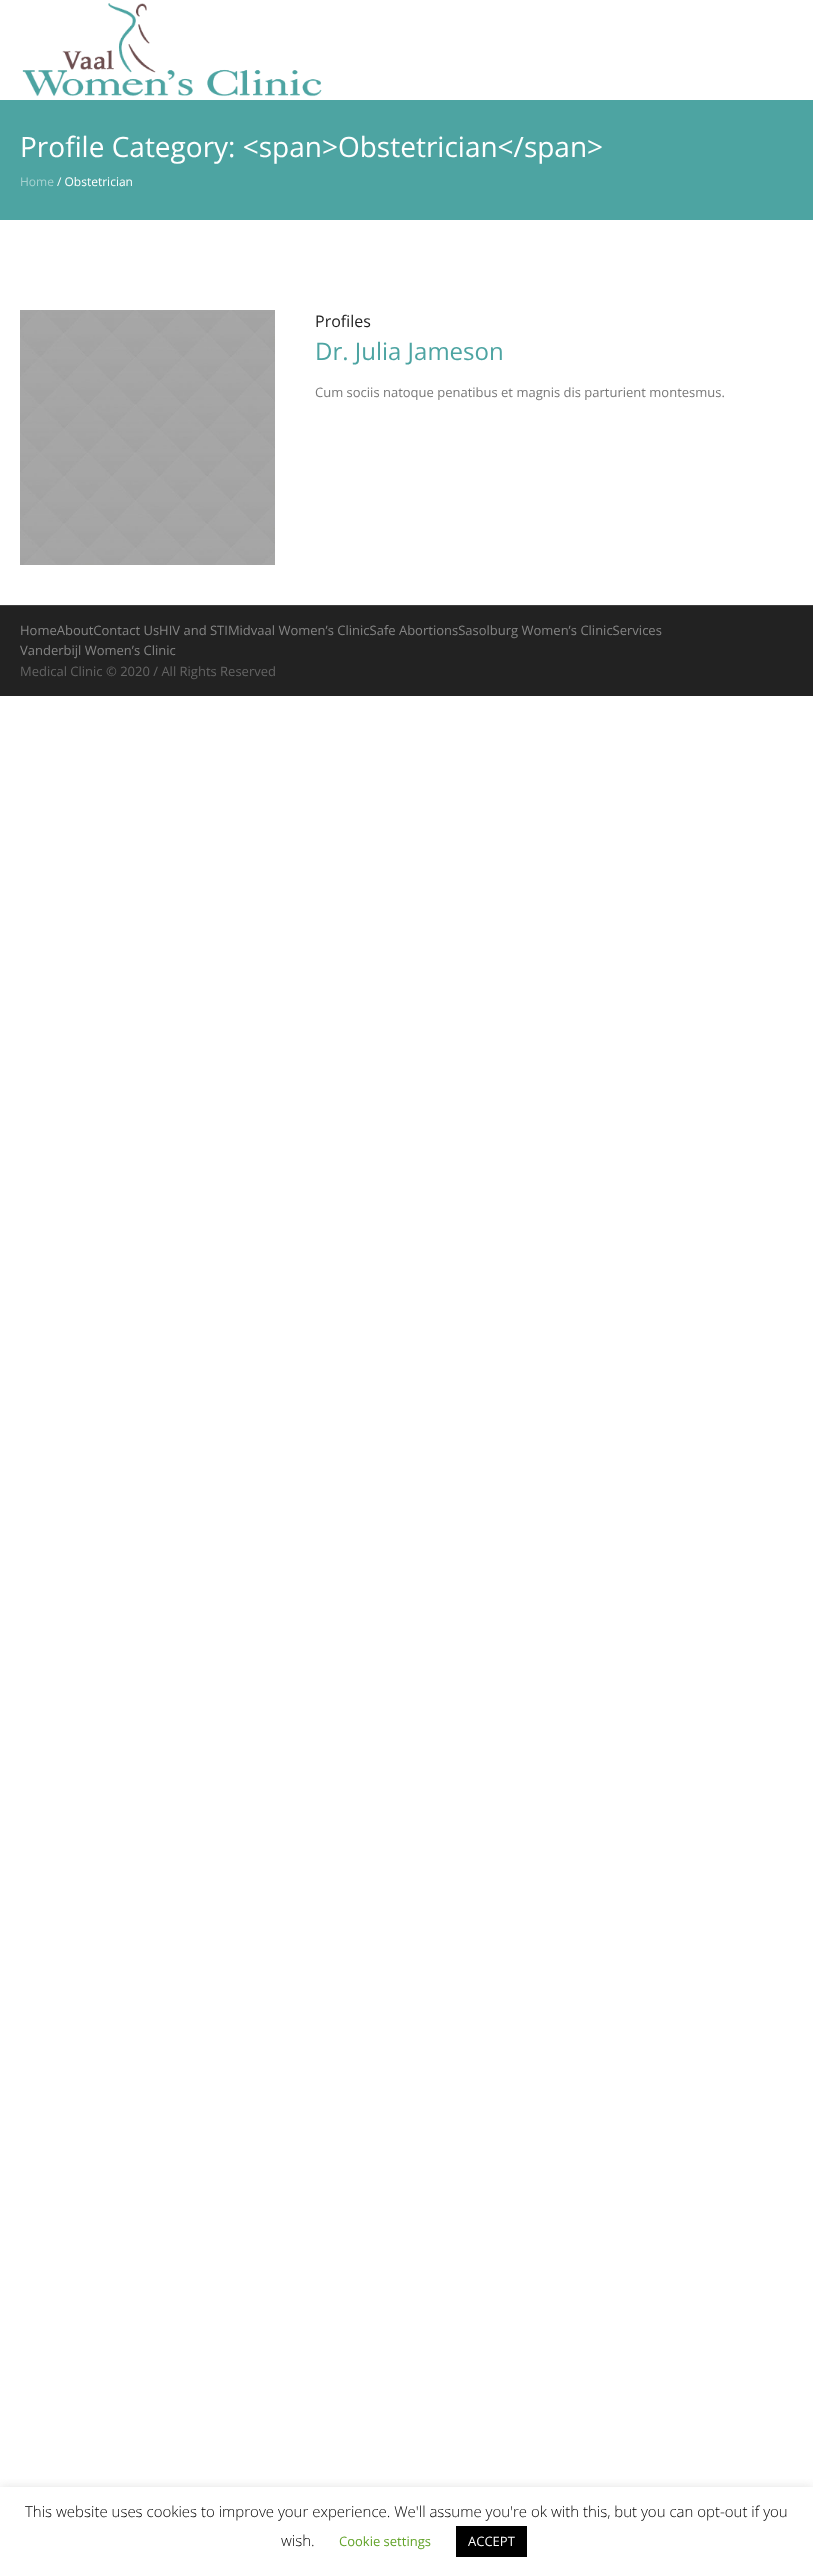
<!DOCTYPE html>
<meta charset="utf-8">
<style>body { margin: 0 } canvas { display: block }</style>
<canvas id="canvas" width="813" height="2574"></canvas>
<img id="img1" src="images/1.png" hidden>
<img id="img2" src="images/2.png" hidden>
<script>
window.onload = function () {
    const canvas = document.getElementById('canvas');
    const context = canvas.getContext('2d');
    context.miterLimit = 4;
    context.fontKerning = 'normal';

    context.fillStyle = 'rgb(255, 255, 255)';
    context.fillRect(0, 0, 813, 2574);
    context.drawImage(document.getElementById('img1'), 22, 3, 300, 94);
    context.fillStyle = 'rgb(77, 164, 162)';
    context.fillRect(0, 100, 813, 120);
    context.drawImage(document.getElementById('img2'), 20, 310, 255, 255);
    context.fillStyle = 'rgb(34, 34, 34)';
    context.fillRect(0, 606, 813, 90);
    context.fillStyle = 'rgb(61, 61, 61)';
    context.fillRect(0, 605, 813, 1);
    context.save();
    context.beginPath();
    context.rect(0, 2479, 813, 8);
    context.clip();
    context.fillStyle = 'rgba(172, 171, 171, 0.3)';
    context.filter = 'blur(5px)';
    context.beginPath();
    context.rect(0, 2486, 813, 87);
    context.fill();
    context.filter = 'none';
    context.restore();
    context.fillStyle = 'rgb(0, 0, 0)';
    context.fillRect(456, 2526, 71, 31);
    context.font = '28px Open Sans';
    context.fillStyle = 'rgb(255, 255, 255)';
    context.fillText('Profile Category: <span>Obstetrician<\/span>', 20, 157);
    context.font = '12px Open Sans';
    context.fillStyle = 'rgb(166, 210, 209)';
    context.fillText('Home', 20, 186);
    context.fillStyle = 'rgb(255, 255, 255)';
    context.fillText('/ Obstetrician', 57, 186);
    context.font = '16px Open Sans';
    context.fillStyle = 'rgb(34, 34, 34)';
    context.fillText('Profiles', 315, 327);
    context.font = '24px Open Sans';
    context.fillStyle = 'rgb(77, 164, 162)';
    context.fillText('Dr. Julia Jameson', 315, 360);
    context.font = '13px Open Sans';
    context.fillStyle = 'rgb(120, 120, 120)';
    context.fillText('Cum sociis natoque penatibus et magnis dis parturient montesmus.', 315, 397);
    context.fillStyle = 'rgb(133, 133, 133)';
    context.fillText('HomeAboutContact UsHIV and STIMidvaal Women’s ClinicSafe AbortionsSasolburg Women’s ClinicServices', 20, 635);
    context.fillText('Vanderbijl Women’s Clinic', 20, 655);
    context.fillStyle = 'rgb(100, 100, 100)';
    context.fillText('Medical Clinic © 2020 / All Rights Reserved', 20, 676);
    context.font = '300 15px Open Sans';
    context.fillStyle = 'rgb(0, 0, 0)';
    context.fillText('This website uses cookies to improve your experience. We\'ll assume you\'re ok with this, but you can opt-out if you', 25, 2517);
    context.fillText('wish.', 281, 2546);
    context.font = '13px Open Sans';
    context.fillStyle = 'rgb(98, 163, 41)';
    context.fillText('Cookie settings', 339, 2546);
    context.fillStyle = 'rgb(255, 255, 255)';
    context.fillText('ACCEPT', 468, 2546);
};
</script>
